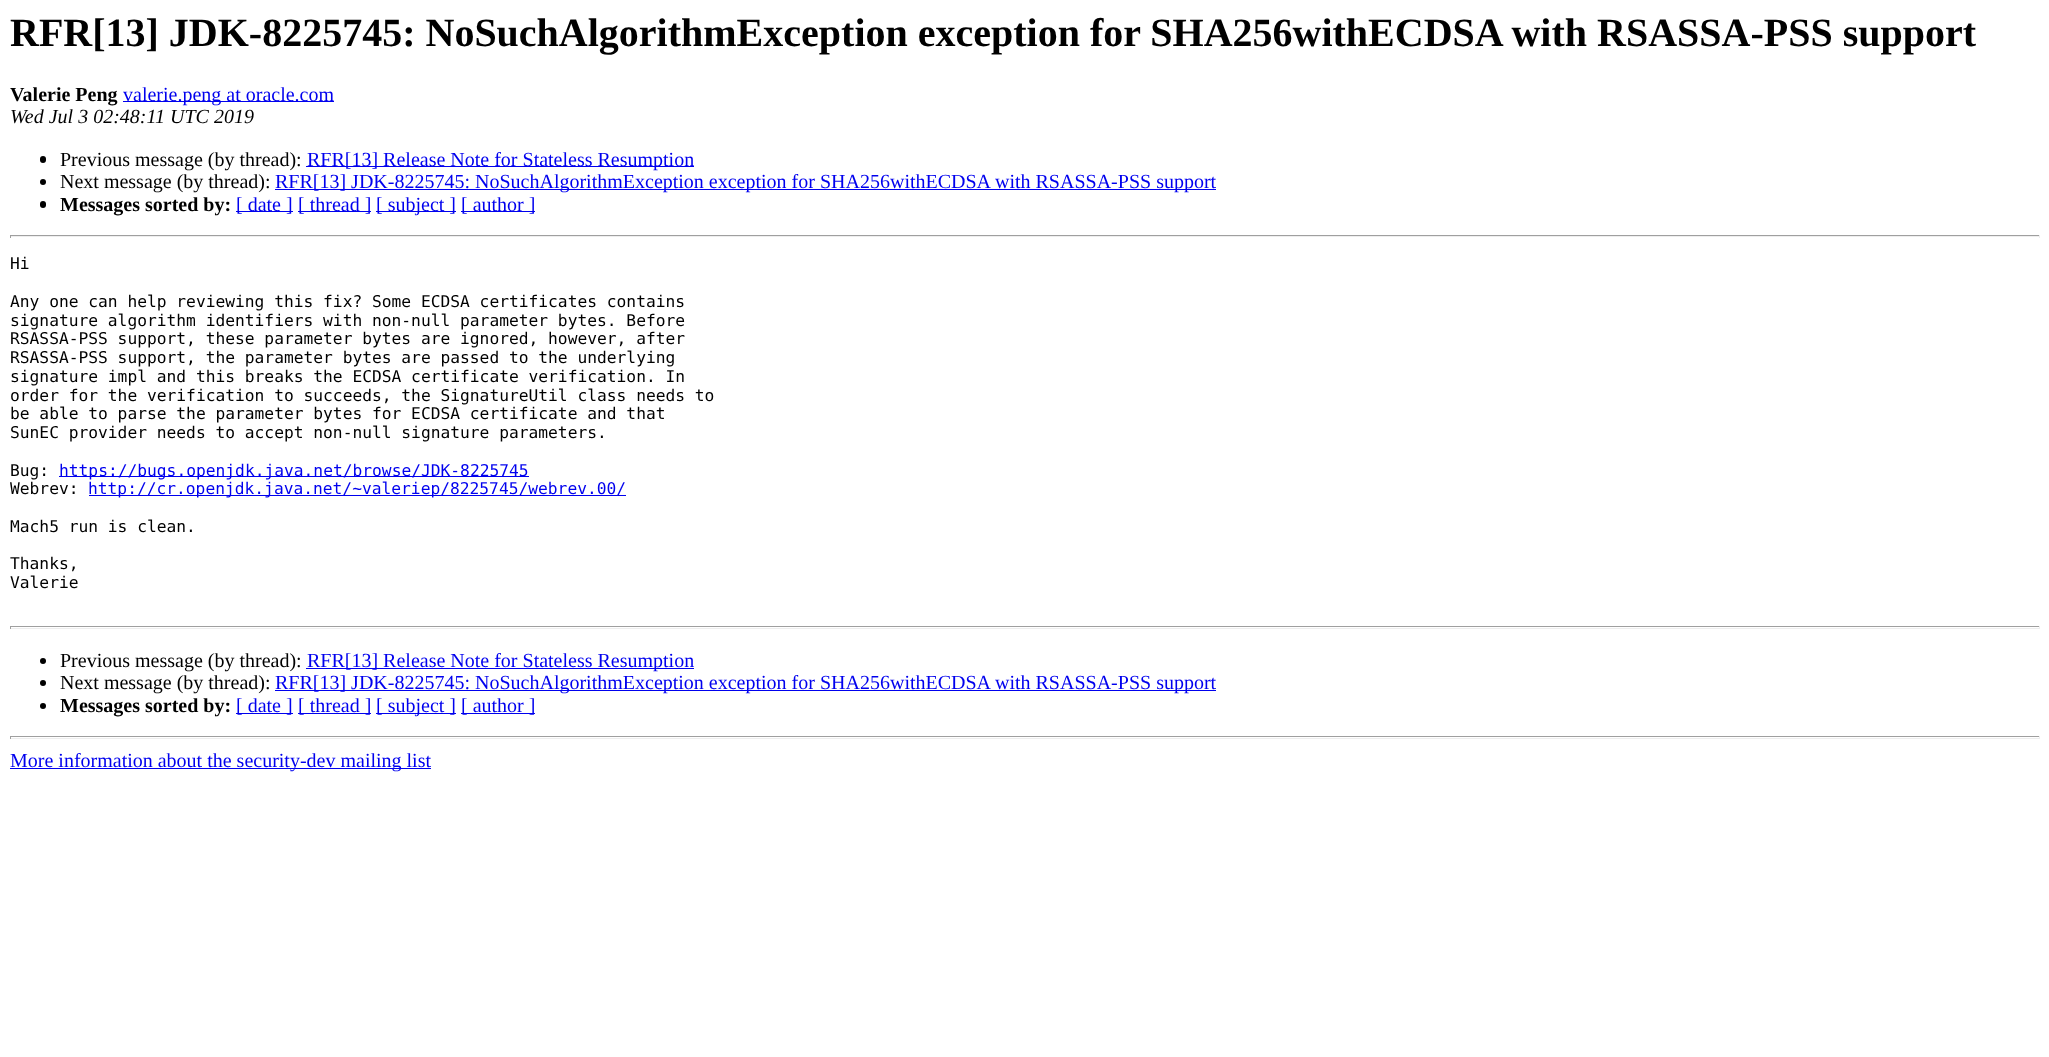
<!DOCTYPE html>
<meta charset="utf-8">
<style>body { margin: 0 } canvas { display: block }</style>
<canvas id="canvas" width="2049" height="1057"></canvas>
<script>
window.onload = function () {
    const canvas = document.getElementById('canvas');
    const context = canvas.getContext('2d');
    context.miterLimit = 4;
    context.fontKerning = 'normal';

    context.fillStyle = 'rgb(255, 255, 255)';
    context.fillRect(0, 0, 2049, 1057);
    context.fillStyle = 'rgb(0, 0, 238)';
    context.fillRect(123, 101, 211, 1);
    context.fillStyle = 'rgb(0, 0, 0)';
    context.beginPath();
    context.roundRect(40, 156, 6, 7, 3);
    context.fill();
    context.fillStyle = 'rgb(0, 0, 238)';
    context.fillRect(306, 166, 388, 1);
    context.fillStyle = 'rgb(0, 0, 0)';
    context.beginPath();
    context.arc(43, 182, 3, 0, 2 * Math.PI);
    context.fill();
    context.fillStyle = 'rgb(0, 0, 238)';
    context.fillRect(275, 189, 941, 1);
    context.fillStyle = 'rgb(0, 0, 0)';
    context.beginPath();
    context.roundRect(40, 201, 6, 7, 3);
    context.fill();
    context.fillStyle = 'rgb(0, 0, 238)';
    context.fillRect(236, 211, 57, 1);
    context.fillRect(298, 211, 73, 1);
    context.fillRect(376, 211, 80, 1);
    context.fillRect(461, 211, 74, 1);
    context.fillStyle = 'rgb(159, 159, 159)';
    context.fillRect(10, 235, 2030, 1);
    context.fillStyle = 'rgb(238, 238, 238)';
    context.fillRect(2039, 235, 1, 3);
    context.fillRect(10, 236, 2030, 1);
    context.fillStyle = 'rgb(159, 159, 159)';
    context.fillRect(10, 235, 1, 3);
    context.fillStyle = 'rgb(0, 0, 238)';
    context.fillRect(59, 476, 470, 1);
    context.fillRect(89, 495, 537, 1);
    context.fillStyle = 'rgb(159, 159, 159)';
    context.fillRect(10, 626, 2030, 1);
    context.fillStyle = 'rgb(238, 238, 238)';
    context.fillRect(2039, 626, 1, 3);
    context.fillRect(10, 628, 2030, 1);
    context.fillStyle = 'rgb(159, 159, 159)';
    context.fillRect(10, 626, 1, 3);
    context.fillStyle = 'rgb(0, 0, 0)';
    context.beginPath();
    context.arc(43, 661, 3, 0, 2 * Math.PI);
    context.fill();
    context.fillStyle = 'rgb(0, 0, 238)';
    context.fillRect(306, 668, 388, 1);
    context.fillStyle = 'rgb(0, 0, 0)';
    context.beginPath();
    context.arc(43, 683, 3, 0, 2 * Math.PI);
    context.fill();
    context.fillStyle = 'rgb(0, 0, 238)';
    context.fillRect(275, 690, 941, 1);
    context.fillStyle = 'rgb(0, 0, 0)';
    context.beginPath();
    context.arc(43, 706, 3, 0, 2 * Math.PI);
    context.fill();
    context.fillStyle = 'rgb(0, 0, 238)';
    context.fillRect(236, 713, 57, 1);
    context.fillRect(298, 713, 73, 1);
    context.fillRect(376, 713, 80, 1);
    context.fillRect(461, 713, 74, 1);
    context.fillStyle = 'rgb(159, 159, 159)';
    context.fillRect(10, 736, 2030, 1);
    context.fillStyle = 'rgb(238, 238, 238)';
    context.fillRect(2039, 736, 1, 3);
    context.fillRect(10, 738, 2030, 1);
    context.fillStyle = 'rgb(159, 159, 159)';
    context.fillRect(10, 736, 1, 3);
    context.fillStyle = 'rgb(0, 0, 238)';
    context.fillRect(10, 768, 421, 1);
    context.font = 'bold 40px Liberation Serif';
    context.fillStyle = 'rgb(0, 0, 0)';
    context.fillText('RFR[13] JDK-8225745: NoSuchAlgorithmException exception for SHA256withECDSA with RSASSA-PSS support', 10, 46);
    context.font = 'bold 20px Liberation Serif';
    context.fillText('Valerie Peng', 10, 101);
    context.font = '20px Liberation Serif';
    context.fillStyle = 'rgb(0, 0, 238)';
    context.fillText('valerie.peng at oracle.com', 123, 101);
    context.font = 'italic 20px Liberation Serif';
    context.fillStyle = 'rgb(0, 0, 0)';
    context.fillText('Wed Jul 3 02:48:11 UTC 2019', 10, 123);
    context.font = '20px Liberation Serif';
    context.fillText('Previous message (by thread):', 60, 166);
    context.fillStyle = 'rgb(0, 0, 238)';
    context.fillText('RFR[13] Release Note for Stateless Resumption', 307, 166);
    context.fillStyle = 'rgb(0, 0, 0)';
    context.fillText('Next message (by thread):', 60, 188);
    context.fillStyle = 'rgb(0, 0, 238)';
    context.fillText('RFR[13] JDK-8225745: NoSuchAlgorithmException exception for SHA256withECDSA with RSASSA-PSS support', 275, 188);
    context.font = 'bold 20px Liberation Serif';
    context.fillStyle = 'rgb(0, 0, 0)';
    context.fillText('Messages sorted by:', 60, 211);
    context.font = '20px Liberation Serif';
    context.fillStyle = 'rgb(0, 0, 238)';
    context.fillText('[ date ]', 236, 211);
    context.fillText('[ thread ]', 298, 211);
    context.fillText('[ subject ]', 376, 211);
    context.fillText('[ author ]', 461, 211);
    context.font = '16.25px DejaVu Sans Mono';
    context.fillStyle = 'rgb(0, 0, 0)';
    context.fillText('Hi', 10, 269);
    context.fillText('Any one can help reviewing this fix? Some ECDSA certificates contains', 10, 307);
    context.fillText('signature algorithm identifiers with non-null parameter bytes. Before', 10, 326);
    context.fillText('RSASSA-PSS support, these parameter bytes are ignored, however, after', 10, 344);
    context.fillText('RSASSA-PSS support, the parameter bytes are passed to the underlying', 10, 363);
    context.fillText('signature impl and this breaks the ECDSA certificate verification. In', 10, 382);
    context.fillText('order for the verification to succeeds, the SignatureUtil class needs to', 10, 401);
    context.fillText('be able to parse the parameter bytes for ECDSA certificate and that', 10, 419);
    context.fillText('SunEC provider needs to accept non-null signature parameters.', 10, 438);
    context.fillText('Bug:', 10, 476);
    context.fillStyle = 'rgb(0, 0, 238)';
    context.fillText('https://bugs.openjdk.java.net/browse/JDK-8225745', 59, 476);
    context.fillStyle = 'rgb(0, 0, 0)';
    context.fillText('Webrev:', 10, 494);
    context.fillStyle = 'rgb(0, 0, 238)';
    context.fillText('http://cr.openjdk.java.net/~valeriep/8225745/webrev.00/', 88, 494);
    context.fillStyle = 'rgb(0, 0, 0)';
    context.fillText('Mach5 run is clean.', 10, 532);
    context.fillText('Thanks,', 10, 569);
    context.fillText('Valerie', 10, 588);
    context.font = '20px Liberation Serif';
    context.fillText('Previous message (by thread):', 60, 667);
    context.fillStyle = 'rgb(0, 0, 238)';
    context.fillText('RFR[13] Release Note for Stateless Resumption', 307, 667);
    context.fillStyle = 'rgb(0, 0, 0)';
    context.fillText('Next message (by thread):', 60, 689);
    context.fillStyle = 'rgb(0, 0, 238)';
    context.fillText('RFR[13] JDK-8225745: NoSuchAlgorithmException exception for SHA256withECDSA with RSASSA-PSS support', 275, 689);
    context.font = 'bold 20px Liberation Serif';
    context.fillStyle = 'rgb(0, 0, 0)';
    context.fillText('Messages sorted by:', 60, 712);
    context.font = '20px Liberation Serif';
    context.fillStyle = 'rgb(0, 0, 238)';
    context.fillText('[ date ]', 236, 712);
    context.fillText('[ thread ]', 298, 712);
    context.fillText('[ subject ]', 376, 712);
    context.fillText('[ author ]', 461, 712);
    context.fillText('More information about the security-dev mailing list', 10, 767);
};
</script>
